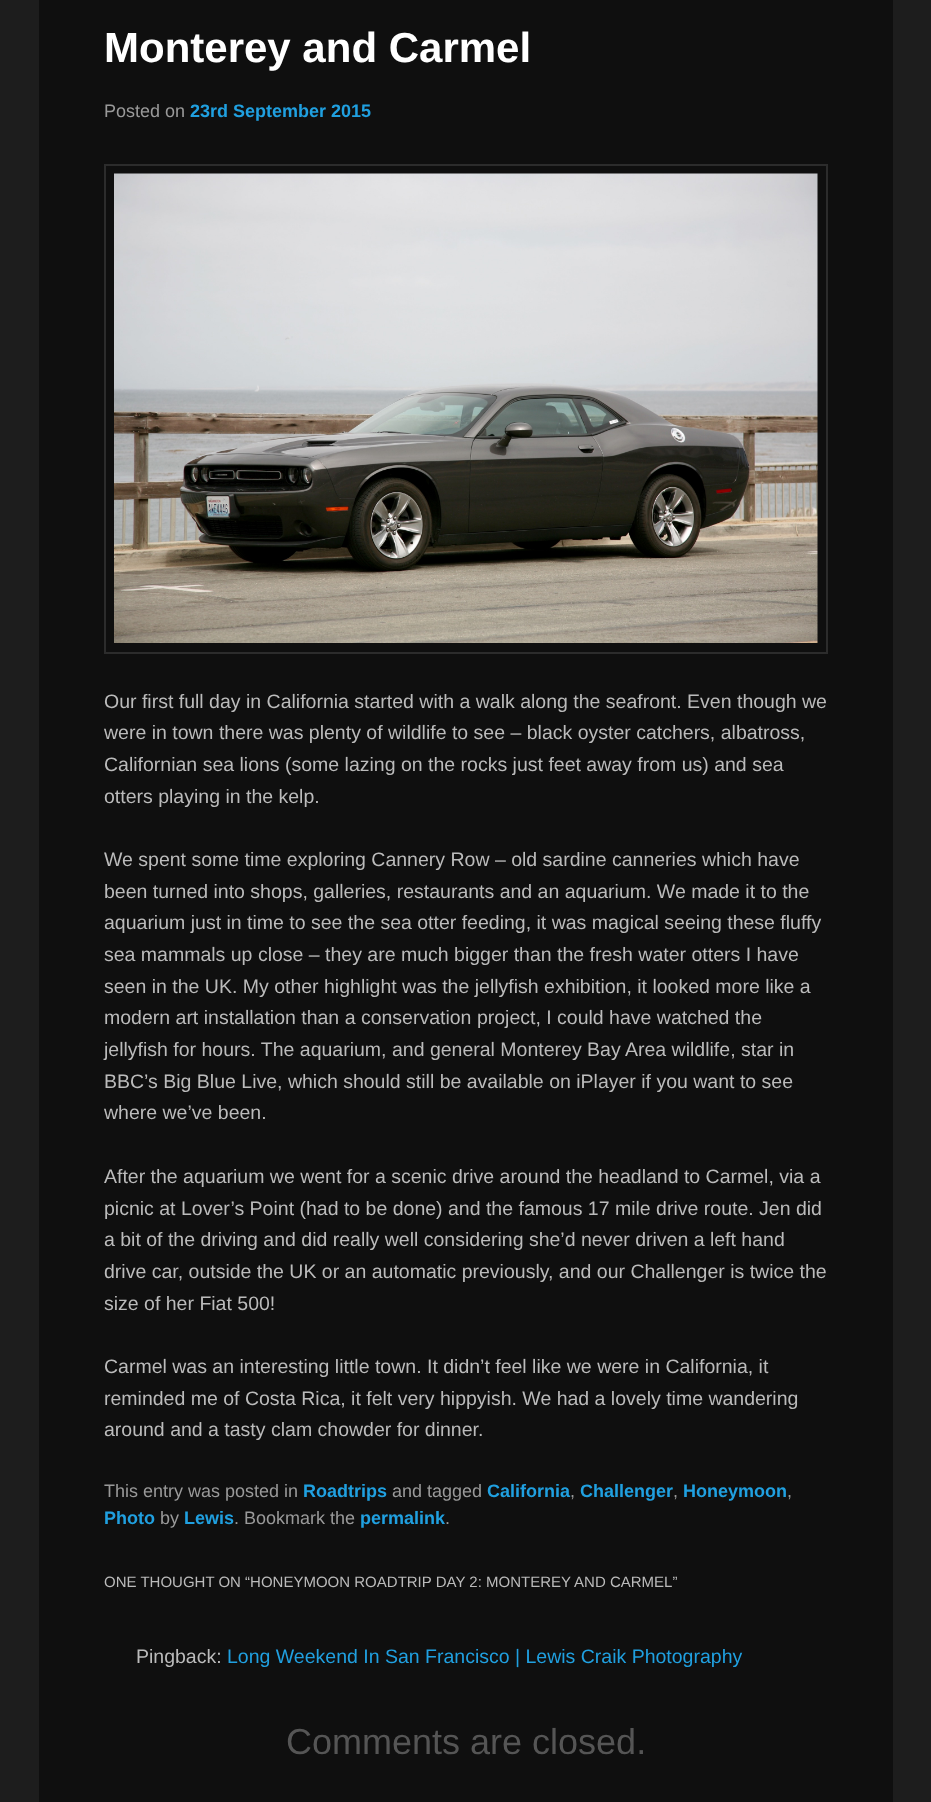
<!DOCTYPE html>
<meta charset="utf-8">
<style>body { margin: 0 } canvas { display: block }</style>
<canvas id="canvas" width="931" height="1802"></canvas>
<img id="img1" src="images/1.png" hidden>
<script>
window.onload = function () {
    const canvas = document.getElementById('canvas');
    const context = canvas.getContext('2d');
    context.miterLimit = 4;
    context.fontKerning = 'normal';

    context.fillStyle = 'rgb(29, 29, 29)';
    context.fillRect(0, 0, 931, 1802);
    context.fillStyle = 'rgb(15, 15, 15)';
    context.fillRect(39, 0, 854, 1802);
    context.strokeStyle = 'rgb(44, 44, 44)';
    context.lineWidth = 2;
    context.strokeRect(105, 165, 722, 488);
    context.drawImage(document.getElementById('img1'), 114, 173, 704, 470);
    context.font = 'bold 42px Liberation Sans';
    context.fillStyle = 'rgb(255, 255, 255)';
    context.fillText('Monterey and Carmel', 104, 62);
    context.font = '18px Liberation Sans';
    context.fillStyle = 'rgb(153, 153, 153)';
    context.fillText('Posted on', 104, 117);
    context.font = 'bold 18px Liberation Sans';
    context.fillStyle = 'rgb(32, 160, 224)';
    context.fillText('23rd September 2015', 190, 117);
    context.font = '19.5px Liberation Sans';
    context.fillStyle = 'rgb(187, 187, 187)';
    context.fillText('Our first full day in California started with a walk along the seafront. Even though we', 104, 708);
    context.fillText('were in town there was plenty of wildlife to see – black oyster catchers, albatross,', 104, 739);
    context.fillText('Californian sea lions (some lazing on the rocks just feet away from us) and sea', 104, 771);
    context.fillText('otters playing in the kelp.', 104, 803);
    context.fillText('We spent some time exploring Cannery Row – old sardine canneries which have', 104, 866);
    context.fillText('been turned into shops, galleries, restaurants and an aquarium. We made it to the', 104, 898);
    context.fillText('aquarium just in time to see the sea otter feeding, it was magical seeing these fluffy', 104, 929);
    context.fillText('sea mammals up close – they are much bigger than the fresh water otters I have', 104, 961);
    context.fillText('seen in the UK. My other highlight was the jellyfish exhibition, it looked more like a', 104, 993);
    context.fillText('modern art installation than a conservation project, I could have watched the', 104, 1024);
    context.fillText('jellyfish for hours. The aquarium, and general Monterey Bay Area wildlife, star in', 104, 1056);
    context.fillText('BBC’s Big Blue Live, which should still be available on iPlayer if you want to see', 104, 1088);
    context.fillText('where we’ve been.', 104, 1119);
    context.fillText('After the aquarium we went for a scenic drive around the headland to Carmel, via a', 104, 1183);
    context.fillText('picnic at Lover’s Point (had to be done) and the famous 17 mile drive route. Jen did', 104, 1215);
    context.fillText('a bit of the driving and did really well considering she’d never driven a left hand', 104, 1246);
    context.fillText('drive car, outside the UK or an automatic previously, and our Challenger is twice the', 104, 1278);
    context.fillText('size of her Fiat 500!', 104, 1310);
    context.fillText('Carmel was an interesting little town. It didn’t feel like we were in California, it', 104, 1373);
    context.fillText('reminded me of Costa Rica, it felt very hippyish. We had a lovely time wandering', 104, 1405);
    context.fillText('around and a tasty clam chowder for dinner.', 104, 1436);
    context.font = '18px Liberation Sans';
    context.fillStyle = 'rgb(153, 153, 153)';
    context.fillText('This entry was posted in', 104, 1497);
    context.font = 'bold 18px Liberation Sans';
    context.fillStyle = 'rgb(32, 160, 224)';
    context.fillText('Roadtrips', 303, 1497);
    context.font = '18px Liberation Sans';
    context.fillStyle = 'rgb(153, 153, 153)';
    context.fillText('and tagged', 392, 1497);
    context.font = 'bold 18px Liberation Sans';
    context.fillStyle = 'rgb(32, 160, 224)';
    context.fillText('California', 487, 1497);
    context.font = '18px Liberation Sans';
    context.fillStyle = 'rgb(153, 153, 153)';
    context.fillText(',', 570, 1497);
    context.font = 'bold 18px Liberation Sans';
    context.fillStyle = 'rgb(32, 160, 224)';
    context.fillText('Challenger', 580, 1497);
    context.font = '18px Liberation Sans';
    context.fillStyle = 'rgb(153, 153, 153)';
    context.fillText(',', 673, 1497);
    context.font = 'bold 18px Liberation Sans';
    context.fillStyle = 'rgb(32, 160, 224)';
    context.fillText('Honeymoon', 683, 1497);
    context.font = '18px Liberation Sans';
    context.fillStyle = 'rgb(153, 153, 153)';
    context.fillText(',', 787, 1497);
    context.font = 'bold 18px Liberation Sans';
    context.fillStyle = 'rgb(32, 160, 224)';
    context.fillText('Photo', 104, 1524);
    context.font = '18px Liberation Sans';
    context.fillStyle = 'rgb(153, 153, 153)';
    context.fillText('by', 160, 1524);
    context.font = 'bold 18px Liberation Sans';
    context.fillStyle = 'rgb(32, 160, 224)';
    context.fillText('Lewis', 184, 1524);
    context.font = '18px Liberation Sans';
    context.fillStyle = 'rgb(153, 153, 153)';
    context.fillText('. Bookmark the', 234, 1524);
    context.font = 'bold 18px Liberation Sans';
    context.fillStyle = 'rgb(32, 160, 224)';
    context.fillText('permalink', 360, 1524);
    context.font = '18px Liberation Sans';
    context.fillStyle = 'rgb(153, 153, 153)';
    context.fillText('.', 445, 1524);
    context.font = '15px Liberation Sans';
    context.fillStyle = 'rgb(187, 187, 187)';
    context.fillText('ONE THOUGHT ON “HONEYMOON ROADTRIP DAY 2: MONTEREY AND CARMEL”', 104, 1587);
    context.font = '19.5px Liberation Sans';
    context.fillText('Pingback:', 136, 1663);
    context.fillStyle = 'rgb(32, 160, 224)';
    context.fillText('Long Weekend In San Francisco | Lewis Craik Photography', 227, 1663);
    context.font = '36px Liberation Sans';
    context.fillStyle = 'rgb(85, 85, 85)';
    context.fillText('Comments are closed.', 286, 1754);
};
</script>
